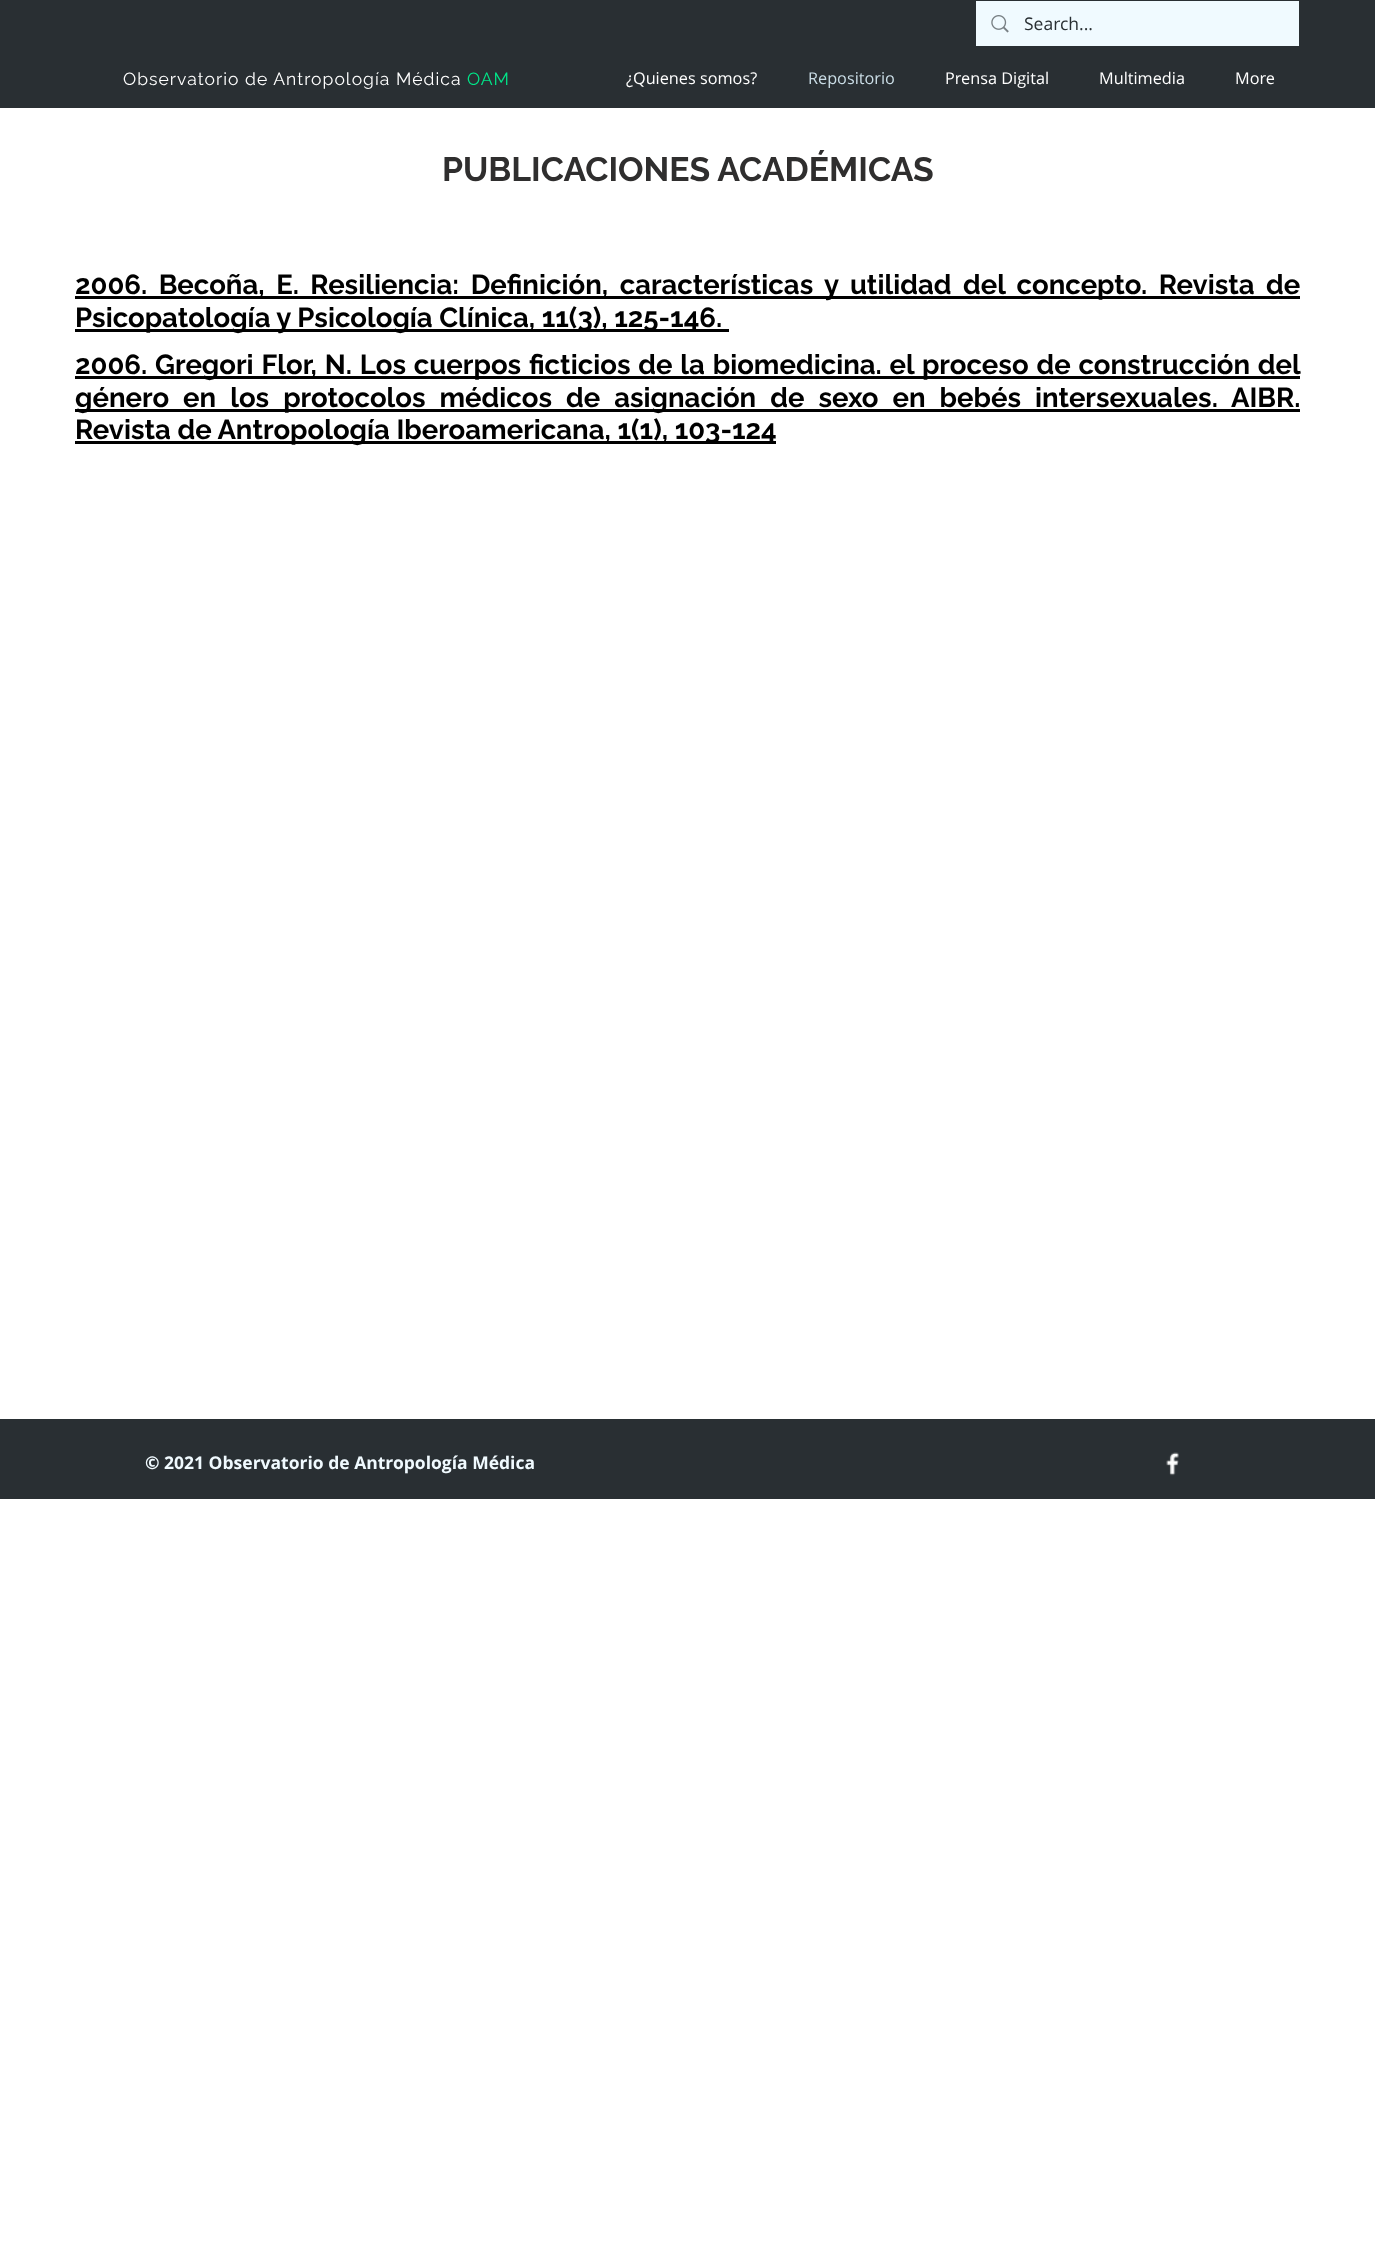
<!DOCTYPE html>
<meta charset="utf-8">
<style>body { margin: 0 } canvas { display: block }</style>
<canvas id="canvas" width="1375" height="2247"></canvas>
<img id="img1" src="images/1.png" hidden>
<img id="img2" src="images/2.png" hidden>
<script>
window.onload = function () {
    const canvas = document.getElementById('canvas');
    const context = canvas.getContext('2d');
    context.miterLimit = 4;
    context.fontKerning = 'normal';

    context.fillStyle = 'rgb(255, 255, 255)';
    context.fillRect(0, 0, 1375, 2247);
    context.fillStyle = 'rgb(41, 47, 51)';
    context.fillRect(0, 0, 1375, 108);
    context.fillStyle = 'rgb(240, 250, 255)';
    context.fillRect(976, 1, 323, 45);
    context.drawImage(document.getElementById('img1'), 991, 15, 18, 18);
    context.fillStyle = 'rgb(0, 0, 0)';
    context.fillRect(75, 296, 1225, 3);
    context.fillRect(75, 329, 654, 3);
    context.fillRect(75, 376, 1225, 3);
    context.fillRect(75, 409, 1225, 3);
    context.fillRect(75, 441, 701, 3);
    context.fillStyle = 'rgb(41, 47, 51)';
    context.fillRect(0, 1419, 1375, 80);
    context.drawImage(document.getElementById('img2'), 1166, 1452, 13, 24);
    context.font = '17.5px Open Sans';
    context.fillText('Search...', 1024, 30);
    context.letterSpacing = '1.05px';
    context.font = '17.5px Raleway';
    context.fillStyle = 'rgb(255, 255, 255)';
    context.fillText('Observatorio de Antropología Médica', 123, 85);
    context.fillStyle = 'rgb(0, 230, 137)';
    context.fillText('OAM', 467, 85);
    context.letterSpacing = '0px';
    context.font = '16.25px Open Sans';
    context.fillStyle = 'rgb(255, 255, 255)';
    context.fillText('¿Quienes somos?', 626, 84);
    context.fillStyle = 'rgb(202, 221, 230)';
    context.fillText('Repositorio', 808, 84);
    context.fillStyle = 'rgb(255, 255, 255)';
    context.fillText('Prensa Digital', 945, 84);
    context.fillText('Multimedia', 1099, 84);
    context.fillText('More', 1235, 84);
    context.font = 'bold 33.75px Raleway';
    context.fillStyle = 'rgb(47, 46, 46)';
    context.fillText('PUBLICACIONES ACADÉMICAS', 442, 181);
    context.wordSpacing = '4.9px';
    context.font = 'bold 27.5px Raleway';
    context.fillStyle = 'rgb(0, 0, 0)';
    context.fillText('2006. Becoña, E. Resiliencia: Definición, características y utilidad del concepto. Revista de', 75, 294);
    context.wordSpacing = '0px';
    context.fillText('Psicopatología y Psicología Clínica, 11(3), 125-146.', 75, 327);
    context.wordSpacing = '1.25px';
    context.fillText('2006. Gregori Flor, N. Los cuerpos ficticios de la biomedicina. el proceso de construcción del', 75, 374);
    context.wordSpacing = '7.4px';
    context.fillText('género en los protocolos médicos de asignación de sexo en bebés intersexuales. AIBR.', 75, 407);
    context.wordSpacing = '0px';
    context.fillText('Revista de Antropología Iberoamericana, 1(1), 103-124', 75, 439);
    context.font = 'bold 17.5px Open Sans';
    context.fillStyle = 'rgb(240, 250, 255)';
    context.fillText('© 2021 Observatorio de Antropología Médica', 145, 1469);
};
</script>
